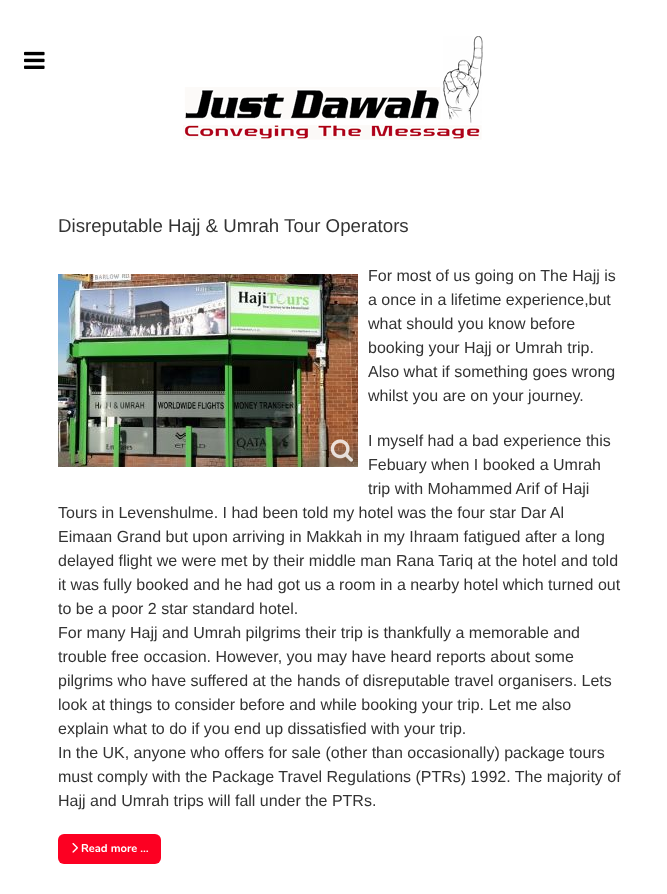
<!DOCTYPE html>
<meta charset="utf-8">
<style>body { margin: 0 } canvas { display: block }</style>
<canvas id="canvas" width="667" height="894"></canvas>
<img id="img1" src="images/1.png" hidden>
<img id="img2" src="images/2.png" hidden>
<img id="img3" src="images/3.png" hidden>
<img id="img4" src="images/4.png" hidden>
<img id="img5" src="images/5.png" hidden>
<script>
window.onload = function () {
    const canvas = document.getElementById('canvas');
    const context = canvas.getContext('2d');
    context.miterLimit = 4;
    context.fontKerning = 'normal';

    context.fillStyle = 'rgb(255, 255, 255)';
    context.fillRect(0, 0, 667, 894);
    context.drawImage(document.getElementById('img1'), 24, 51, 21, 18);
    context.drawImage(document.getElementById('img2'), 183, 36, 300, 104);
    context.drawImage(document.getElementById('img3'), 58, 274, 300, 193);
    context.drawImage(document.getElementById('img4'), 330, 439, 23, 23);
    context.fillStyle = 'rgb(252, 0, 34)';
    context.beginPath();
    context.roundRect(58, 834, 103, 30, 6);
    context.fill();
    context.drawImage(document.getElementById('img5'), 72, 843, 6, 10);
    context.font = '18.7px Liberation Sans';
    context.fillStyle = 'rgb(51, 51, 51)';
    context.fillText('Disreputable Hajj & Umrah Tour Operators', 58, 232);
    context.font = '16px Liberation Sans';
    context.fillText('For most of us going on The Hajj is', 368, 281);
    context.fillText('a once in a lifetime experience,but', 368, 305);
    context.fillText('what should you know before', 368, 329);
    context.fillText('booking your Hajj or Umrah trip.', 368, 353);
    context.fillText('Also what if something goes wrong', 368, 377);
    context.fillText('whilst you are on your journey.', 368, 401);
    context.fillText('I myself had a bad experience this', 368, 446);
    context.fillText('Febuary when I booked a Umrah', 368, 470);
    context.fillText('trip with Mohammed Arif of Haji', 368, 494);
    context.fillText('Tours in Levenshulme. I had been told my hotel was the four star Dar Al', 58, 518);
    context.fillText('Eimaan Grand but upon arriving in Makkah in my Ihraam fatigued after a long', 58, 542);
    context.fillText('delayed flight we were met by their middle man Rana Tariq at the hotel and told', 58, 566);
    context.fillText('it was fully booked and he had got us a room in a nearby hotel which turned out', 58, 590);
    context.fillText('to be a poor 2 star standard hotel.', 58, 614);
    context.fillText('For many Hajj and Umrah pilgrims their trip is thankfully a memorable and', 58, 638);
    context.fillText('trouble free occasion. However, you may have heard reports about some', 58, 662);
    context.fillText('pilgrims who have suffered at the hands of disreputable travel organisers. Lets', 58, 686);
    context.fillText('look at things to consider before and while booking your trip. Let me also', 58, 710);
    context.fillText('explain what to do if you end up dissatisfied with your trip.', 58, 734);
    context.fillText('In the UK, anyone who offers for sale (other than occasionally) package tours', 58, 758);
    context.fillText('must comply with the Package Travel Regulations (PTRs) 1992. The majority of', 58, 782);
    context.fillText('Hajj and Umrah trips will fall under the PTRs.', 58, 806);
    context.font = 'bold 11.25px Nunito';
    context.fillStyle = 'rgb(255, 255, 255)';
    context.fillText('Read more …', 81, 852);
};
</script>
